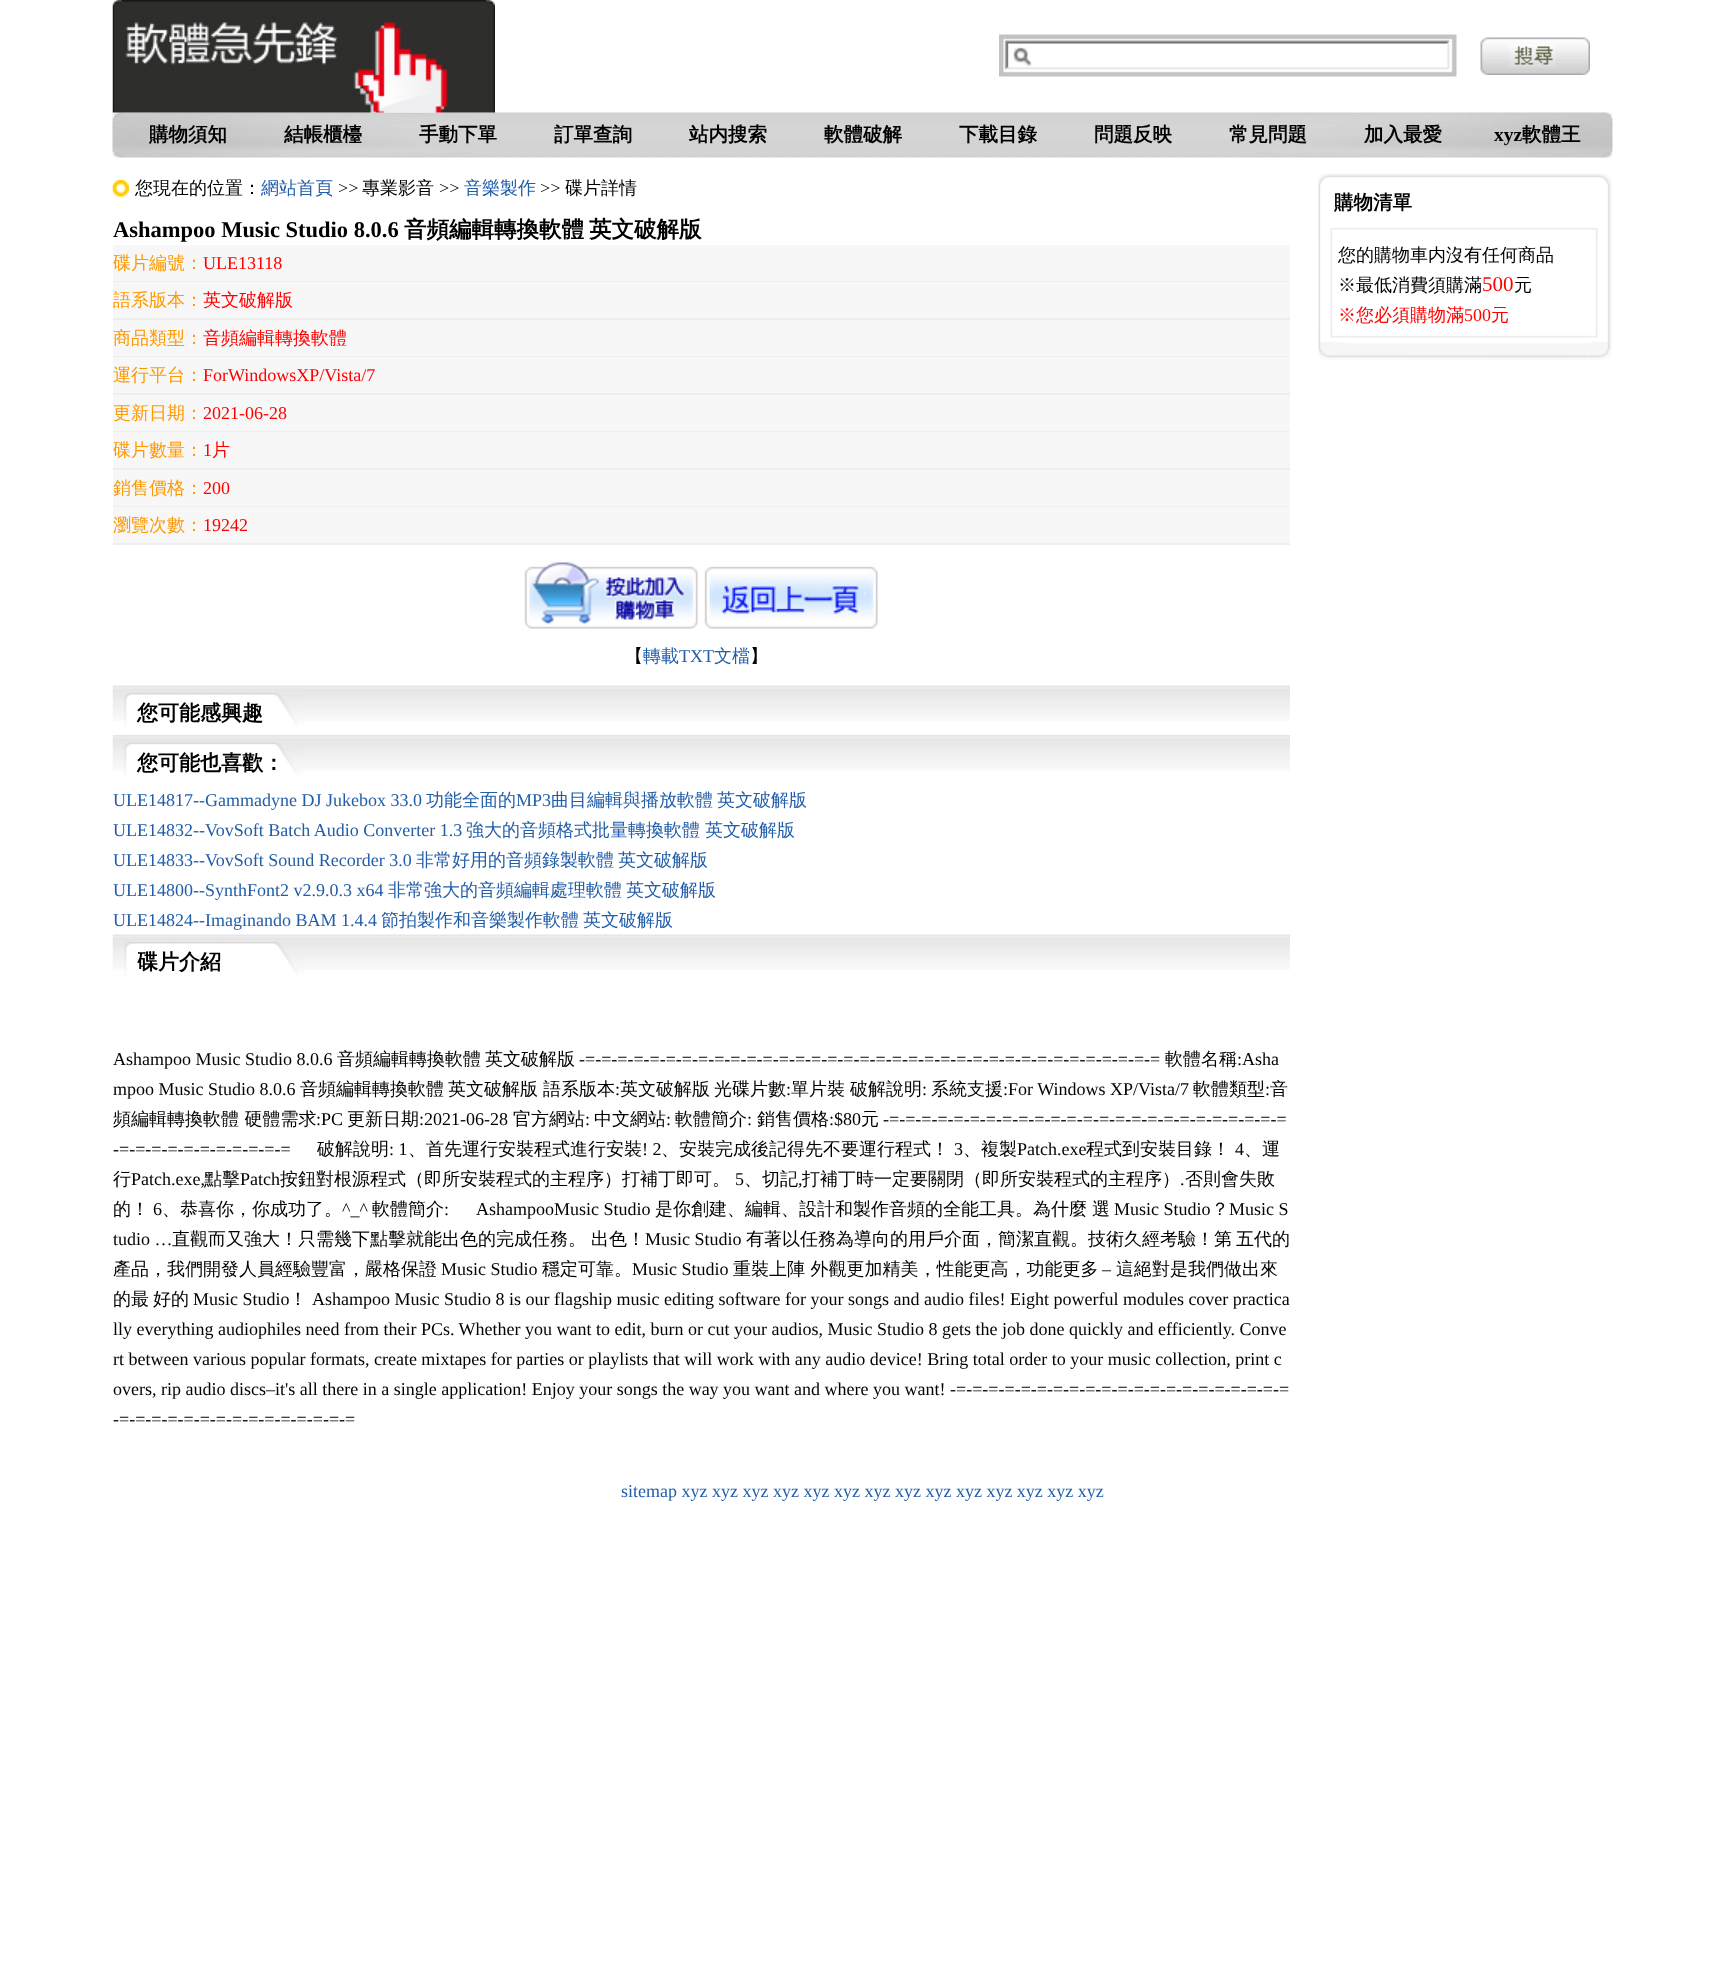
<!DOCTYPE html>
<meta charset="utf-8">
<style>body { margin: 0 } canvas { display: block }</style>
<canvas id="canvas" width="1724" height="1964"></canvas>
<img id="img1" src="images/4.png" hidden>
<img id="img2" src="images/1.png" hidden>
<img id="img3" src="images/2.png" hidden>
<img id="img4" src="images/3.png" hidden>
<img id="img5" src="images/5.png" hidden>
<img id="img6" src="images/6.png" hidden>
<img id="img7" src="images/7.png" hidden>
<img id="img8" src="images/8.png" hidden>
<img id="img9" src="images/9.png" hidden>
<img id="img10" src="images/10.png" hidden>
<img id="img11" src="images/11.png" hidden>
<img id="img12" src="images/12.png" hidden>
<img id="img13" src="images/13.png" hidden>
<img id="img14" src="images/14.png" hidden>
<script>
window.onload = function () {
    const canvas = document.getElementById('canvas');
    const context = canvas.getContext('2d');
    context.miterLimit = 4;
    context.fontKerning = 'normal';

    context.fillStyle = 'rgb(255, 255, 255)';
    context.fillRect(0, 0, 1724, 1964);
    context.drawImage(document.getElementById('img1'), 112, 112, 1501, 46);
    context.drawImage(document.getElementById('img2'), 112, 0, 383, 113);
    context.drawImage(document.getElementById('img3'), 999, 34, 458, 43);
    context.drawImage(document.getElementById('img4'), 1480, 37, 110, 38);
    context.drawImage(document.getElementById('img5'), 112, 180, 17, 17);
    context.fillStyle = 'rgb(247, 247, 247)';
    context.fillRect(113, 245, 1177, 36);
    context.fillStyle = 'rgb(238, 238, 238)';
    context.fillRect(113, 281, 1177, 1);
    context.fillStyle = 'rgb(247, 247, 247)';
    context.fillRect(113, 282, 1177, 36);
    context.fillStyle = 'rgb(238, 238, 238)';
    context.fillRect(113, 318, 1177, 2);
    context.fillStyle = 'rgb(247, 247, 247)';
    context.fillRect(113, 320, 1177, 36);
    context.fillStyle = 'rgb(238, 238, 238)';
    context.fillRect(113, 356, 1177, 1);
    context.fillStyle = 'rgb(247, 247, 247)';
    context.fillRect(113, 357, 1177, 36);
    context.fillStyle = 'rgb(238, 238, 238)';
    context.fillRect(113, 393, 1177, 2);
    context.fillStyle = 'rgb(247, 247, 247)';
    context.fillRect(113, 395, 1177, 36);
    context.fillStyle = 'rgb(238, 238, 238)';
    context.fillRect(113, 431, 1177, 1);
    context.fillStyle = 'rgb(247, 247, 247)';
    context.fillRect(113, 432, 1177, 36);
    context.fillStyle = 'rgb(238, 238, 238)';
    context.fillRect(113, 468, 1177, 2);
    context.fillStyle = 'rgb(247, 247, 247)';
    context.fillRect(113, 470, 1177, 36);
    context.fillStyle = 'rgb(238, 238, 238)';
    context.fillRect(113, 506, 1177, 1);
    context.fillStyle = 'rgb(247, 247, 247)';
    context.fillRect(113, 507, 1177, 36);
    context.fillStyle = 'rgb(238, 238, 238)';
    context.fillRect(113, 543, 1177, 2);
    context.drawImage(document.getElementById('img6'), 524, 562, 174, 67);
    context.drawImage(document.getElementById('img7'), 704, 566, 174, 63);
    context.drawImage(document.getElementById('img8'), 112, 685, 1178, 36);
    context.drawImage(document.getElementById('img9'), 124, 693, 180, 34);
    context.drawImage(document.getElementById('img10'), 112, 735, 1178, 36);
    context.drawImage(document.getElementById('img11'), 124, 742, 180, 35);
    context.drawImage(document.getElementById('img8'), 112, 934, 1178, 36);
    context.drawImage(document.getElementById('img9'), 124, 942, 180, 34);
    context.drawImage(document.getElementById('img12'), 1318, 173, 294, 67);
    context.drawImage(document.getElementById('img13'), 1318, 240, 294, 90);
    context.drawImage(document.getElementById('img14'), 1318, 330, 294, 30);
    context.font = 'bold 19.5px WenQuanYi Zen Hei';
    context.fillStyle = 'rgb(0, 0, 0)';
    context.fillText('購物須知', 149, 141);
    context.fillText('結帳櫃檯', 284, 141);
    context.fillText('手動下單', 419, 141);
    context.fillText('訂單查詢', 554, 141);
    context.fillText('站内搜索', 689, 141);
    context.fillText('軟體破解', 824, 141);
    context.fillText('下載目錄', 959, 141);
    context.fillText('問題反映', 1094, 141);
    context.fillText('常見問題', 1229, 141);
    context.fillText('加入最愛', 1364, 141);
    context.font = 'bold 19.5px Liberation Serif';
    context.fillText('xyz', 1494, 141);
    context.font = 'bold 19.5px WenQuanYi Zen Hei';
    context.fillText('軟體王', 1522, 141);
    context.font = '500 18px WenQuanYi Zen Hei';
    context.fillText('您現在的位置：', 135, 194);
    context.fillStyle = 'rgb(33, 93, 169)';
    context.fillText('網站首頁', 261, 194);
    context.font = '18px Liberation Serif';
    context.fillStyle = 'rgb(0, 0, 0)';
    context.fillText('>>', 338, 194);
    context.font = '500 18px WenQuanYi Zen Hei';
    context.fillText('專業影音', 362, 194);
    context.font = '18px Liberation Serif';
    context.fillText('>>', 439, 194);
    context.font = '500 18px WenQuanYi Zen Hei';
    context.fillStyle = 'rgb(33, 93, 169)';
    context.fillText('音樂製作', 464, 194);
    context.font = '18px Liberation Serif';
    context.fillStyle = 'rgb(0, 0, 0)';
    context.fillText('>>', 540, 194);
    context.font = '500 18px WenQuanYi Zen Hei';
    context.fillText('碟片詳情', 565, 194);
    context.font = 'bold 22.5px Liberation Serif';
    context.fillText('Ashampoo Music Studio 8.0.6', 113, 237);
    context.font = 'bold 22.5px WenQuanYi Zen Hei';
    context.fillText('音頻編輯轉換軟體', 404, 237);
    context.fillText('英文破解版', 589, 237);
    context.font = '500 18px WenQuanYi Zen Hei';
    context.fillStyle = 'rgb(255, 153, 0)';
    context.fillText('碟片編號：', 113, 269);
    context.font = '18px Liberation Serif';
    context.fillStyle = 'rgb(255, 0, 0)';
    context.fillText('ULE13118', 203, 269);
    context.font = '500 18px WenQuanYi Zen Hei';
    context.fillStyle = 'rgb(255, 153, 0)';
    context.fillText('語系版本：', 113, 306);
    context.fillStyle = 'rgb(255, 0, 0)';
    context.fillText('英文破解版', 203, 306);
    context.fillStyle = 'rgb(255, 153, 0)';
    context.fillText('商品類型：', 113, 344);
    context.fillStyle = 'rgb(255, 0, 0)';
    context.fillText('音頻編輯轉換軟體', 203, 344);
    context.fillStyle = 'rgb(255, 153, 0)';
    context.fillText('運行平台：', 113, 381);
    context.font = '18px Liberation Serif';
    context.fillStyle = 'rgb(255, 0, 0)';
    context.fillText('ForWindowsXP/Vista/7', 203, 381);
    context.font = '500 18px WenQuanYi Zen Hei';
    context.fillStyle = 'rgb(255, 153, 0)';
    context.fillText('更新日期：', 113, 419);
    context.font = '18px Liberation Serif';
    context.fillStyle = 'rgb(255, 0, 0)';
    context.fillText('2021-06-28', 203, 419);
    context.font = '500 18px WenQuanYi Zen Hei';
    context.fillStyle = 'rgb(255, 153, 0)';
    context.fillText('碟片數量：', 113, 456);
    context.font = '18px Liberation Serif';
    context.fillStyle = 'rgb(255, 0, 0)';
    context.fillText('1', 203, 456);
    context.font = '500 18px WenQuanYi Zen Hei';
    context.fillText('片', 212, 456);
    context.fillStyle = 'rgb(255, 153, 0)';
    context.fillText('銷售價格：', 113, 494);
    context.font = '18px Liberation Serif';
    context.fillStyle = 'rgb(255, 0, 0)';
    context.fillText('200', 203, 494);
    context.font = '500 18px WenQuanYi Zen Hei';
    context.fillStyle = 'rgb(255, 153, 0)';
    context.fillText('瀏覽次數：', 113, 531);
    context.font = '18px Liberation Serif';
    context.fillStyle = 'rgb(255, 0, 0)';
    context.fillText('19242', 203, 531);
    context.font = '500 18px WenQuanYi Zen Hei';
    context.fillStyle = 'rgb(0, 0, 0)';
    context.fillText('【', 625, 662);
    context.fillStyle = 'rgb(33, 93, 169)';
    context.fillText('轉載', 643, 662);
    context.font = '18px Liberation Serif';
    context.fillText('TXT', 679, 662);
    context.font = '500 18px WenQuanYi Zen Hei';
    context.fillText('文檔', 714, 662);
    context.fillStyle = 'rgb(0, 0, 0)';
    context.fillText('】', 750, 662);
    context.font = 'bold 21px WenQuanYi Zen Hei';
    context.fillText('您可能感興趣', 137, 720);
    context.fillText('您可能也喜歡：', 137, 770);
    context.font = '18px Liberation Serif';
    context.fillStyle = 'rgb(33, 93, 169)';
    context.fillText('ULE14817--Gammadyne DJ Jukebox 33.0', 113, 806);
    context.font = '500 18px WenQuanYi Zen Hei';
    context.fillText('功能全面的', 426, 806);
    context.font = '18px Liberation Serif';
    context.fillText('MP3', 516, 806);
    context.font = '500 18px WenQuanYi Zen Hei';
    context.fillText('曲目編輯與播放軟體', 551, 806);
    context.fillText('英文破解版', 717, 806);
    context.font = '18px Liberation Serif';
    context.fillText('ULE14832--VovSoft Batch Audio Converter 1.3', 113, 836);
    context.font = '500 18px WenQuanYi Zen Hei';
    context.fillText('強大的音頻格式批量轉換軟體', 466, 836);
    context.fillText('英文破解版', 705, 836);
    context.font = '18px Liberation Serif';
    context.fillText('ULE14833--VovSoft Sound Recorder 3.0', 113, 866);
    context.font = '500 18px WenQuanYi Zen Hei';
    context.fillText('非常好用的音頻錄製軟體', 416, 866);
    context.fillText('英文破解版', 618, 866);
    context.font = '18px Liberation Serif';
    context.fillText('ULE14800--SynthFont2 v2.9.0.3 x64', 113, 896);
    context.font = '500 18px WenQuanYi Zen Hei';
    context.fillText('非常強大的音頻編輯處理軟體', 388, 896);
    context.fillText('英文破解版', 626, 896);
    context.font = '18px Liberation Serif';
    context.fillText('ULE14824--Imaginando BAM 1.4.4', 113, 926);
    context.font = '500 18px WenQuanYi Zen Hei';
    context.fillText('節拍製作和音樂製作軟體', 381, 926);
    context.fillText('英文破解版', 583, 926);
    context.font = 'bold 21px WenQuanYi Zen Hei';
    context.fillStyle = 'rgb(0, 0, 0)';
    context.fillText('碟片介紹', 137, 969);
    context.font = '18px Liberation Serif';
    context.fillText('Ashampoo Music Studio 8.0.6', 113, 1065);
    context.font = '500 18px WenQuanYi Zen Hei';
    context.fillText('音頻編輯轉換軟體', 337, 1065);
    context.fillText('英文破解版', 485, 1065);
    context.font = '18px Liberation Serif';
    context.fillText('-=-=-=-=-=-=-=-=-=-=-=-=-=-=-=-=-=-=-=-=-=-=-=-=-=-=-=-=-=-=-=-=-=-=-=-=', 579, 1065);
    context.font = '500 18px WenQuanYi Zen Hei';
    context.fillText('軟體名稱', 1165, 1065);
    context.font = '18px Liberation Serif';
    context.fillText(':Asha', 1237, 1065);
    context.fillText('mpoo Music Studio 8.0.6', 113, 1095);
    context.font = '500 18px WenQuanYi Zen Hei';
    context.fillText('音頻編輯轉換軟體', 300, 1095);
    context.fillText('英文破解版', 448, 1095);
    context.fillText('語系版本', 543, 1095);
    context.font = '18px Liberation Serif';
    context.fillText(':', 615, 1095);
    context.font = '500 18px WenQuanYi Zen Hei';
    context.fillText('英文破解版', 620, 1095);
    context.fillText('光碟片數', 714, 1095);
    context.font = '18px Liberation Serif';
    context.fillText(':', 786, 1095);
    context.font = '500 18px WenQuanYi Zen Hei';
    context.fillText('單片裝', 791, 1095);
    context.fillText('破解說明', 850, 1095);
    context.font = '18px Liberation Serif';
    context.fillText(':', 922, 1095);
    context.font = '500 18px WenQuanYi Zen Hei';
    context.fillText('系統支援', 931, 1095);
    context.font = '18px Liberation Serif';
    context.fillText(':For Windows XP/Vista/7', 1003, 1095);
    context.font = '500 18px WenQuanYi Zen Hei';
    context.fillText('軟體類型', 1193, 1095);
    context.font = '18px Liberation Serif';
    context.fillText(':', 1265, 1095);
    context.font = '500 18px WenQuanYi Zen Hei';
    context.fillText('音', 1270, 1095);
    context.fillText('頻編輯轉換軟體 硬體需求', 113, 1125);
    context.font = '18px Liberation Serif';
    context.fillText(':PC', 316, 1125);
    context.font = '500 18px WenQuanYi Zen Hei';
    context.fillText('更新日期', 347, 1125);
    context.font = '18px Liberation Serif';
    context.fillText(':2021-06-28', 419, 1125);
    context.font = '500 18px WenQuanYi Zen Hei';
    context.fillText('官方網站', 513, 1125);
    context.font = '18px Liberation Serif';
    context.fillText(':', 585, 1125);
    context.font = '500 18px WenQuanYi Zen Hei';
    context.fillText('中文網站', 594, 1125);
    context.font = '18px Liberation Serif';
    context.fillText(':', 666, 1125);
    context.font = '500 18px WenQuanYi Zen Hei';
    context.fillText('軟體簡介', 675, 1125);
    context.font = '18px Liberation Serif';
    context.fillText(':', 747, 1125);
    context.font = '500 18px WenQuanYi Zen Hei';
    context.fillText('銷售價格', 757, 1125);
    context.font = '18px Liberation Serif';
    context.fillText(':$80', 829, 1125);
    context.font = '500 18px WenQuanYi Zen Hei';
    context.fillText('元', 861, 1125);
    context.font = '18px Liberation Serif';
    context.fillText('-=-=-=-=-=-=-=-=-=-=-=-=-=-=-=-=-=-=-=-=-=-=-=-=-=', 883, 1125);
    context.fillText('-=-=-=-=-=-=-=-=-=-=-=', 113, 1155);
    context.font = '500 18px WenQuanYi Zen Hei';
    context.fillText('破解說明', 317, 1155);
    context.font = '18px Liberation Serif';
    context.fillText(': 1', 389, 1155);
    context.font = '500 18px WenQuanYi Zen Hei';
    context.fillText('、首先運行安裝程式進行安裝', 408, 1155);
    context.font = '18px Liberation Serif';
    context.fillText('! 2', 642, 1155);
    context.font = '500 18px WenQuanYi Zen Hei';
    context.fillText('、安裝完成後記得先不要運行程式！', 661, 1155);
    context.font = '18px Liberation Serif';
    context.fillText('3', 954, 1155);
    context.font = '500 18px WenQuanYi Zen Hei';
    context.fillText('、複製', 963, 1155);
    context.font = '18px Liberation Serif';
    context.fillText('Patch.exe', 1017, 1155);
    context.font = '500 18px WenQuanYi Zen Hei';
    context.fillText('程式到安裝目錄！', 1086, 1155);
    context.font = '18px Liberation Serif';
    context.fillText('4', 1235, 1155);
    context.font = '500 18px WenQuanYi Zen Hei';
    context.fillText('、運', 1244, 1155);
    context.fillText('行', 113, 1185);
    context.font = '18px Liberation Serif';
    context.fillText('Patch.exe,', 131, 1185);
    context.font = '500 18px WenQuanYi Zen Hei';
    context.fillText('點擊', 204, 1185);
    context.font = '18px Liberation Serif';
    context.fillText('Patch', 240, 1185);
    context.font = '500 18px WenQuanYi Zen Hei';
    context.fillText('按鈕對根源程式（即所安裝程式的主程序）打補丁即可。', 280, 1185);
    context.font = '18px Liberation Serif';
    context.fillText('5', 735, 1185);
    context.font = '500 18px WenQuanYi Zen Hei';
    context.fillText('、切記', 744, 1185);
    context.font = '18px Liberation Serif';
    context.fillText(',', 798, 1185);
    context.font = '500 18px WenQuanYi Zen Hei';
    context.fillText('打補丁時一定要關閉（即所安裝程式的主程序）', 802, 1185);
    context.font = '18px Liberation Serif';
    context.fillText('.', 1180, 1185);
    context.font = '500 18px WenQuanYi Zen Hei';
    context.fillText('否則會失敗', 1185, 1185);
    context.fillText('的！', 113, 1215);
    context.font = '18px Liberation Serif';
    context.fillText('6', 153, 1215);
    context.font = '500 18px WenQuanYi Zen Hei';
    context.fillText('、恭喜你，你成功了。', 162, 1215);
    context.font = '18px Liberation Serif';
    context.fillText('^_^', 342, 1215);
    context.font = '500 18px WenQuanYi Zen Hei';
    context.fillText('軟體簡介', 372, 1215);
    context.font = '18px Liberation Serif';
    context.fillText(':', 444, 1215);
    context.fillText('AshampooMusic Studio', 476, 1215);
    context.font = '500 18px WenQuanYi Zen Hei';
    context.fillText('是你創建、編輯、設計和製作音頻的全能工具。為什麼', 655, 1215);
    context.fillText('選', 1092, 1215);
    context.font = '18px Liberation Serif';
    context.fillText('Music Studio', 1114, 1215);
    context.font = '500 18px WenQuanYi Zen Hei';
    context.fillText('？', 1211, 1215);
    context.font = '18px Liberation Serif';
    context.fillText('Music S', 1229, 1215);
    context.fillText('tudio …', 113, 1245);
    context.font = '500 18px WenQuanYi Zen Hei';
    context.fillText('直觀而又強大！只需幾下點擊就能出色的完成任務。', 172, 1245);
    context.fillText('出色！', 591, 1245);
    context.font = '18px Liberation Serif';
    context.fillText('Music Studio', 645, 1245);
    context.font = '500 18px WenQuanYi Zen Hei';
    context.fillText('有著以任務為導向的用戶介面，簡潔直觀。技術久經考驗！第', 746, 1245);
    context.fillText('五代的', 1236, 1245);
    context.fillText('產品，我們開發人員經驗豐富，嚴格保證', 113, 1275);
    context.font = '18px Liberation Serif';
    context.fillText('Music Studio', 441, 1275);
    context.font = '500 18px WenQuanYi Zen Hei';
    context.fillText('穩定可靠。', 542, 1275);
    context.font = '18px Liberation Serif';
    context.fillText('Music Studio', 632, 1275);
    context.font = '500 18px WenQuanYi Zen Hei';
    context.fillText('重裝上陣 外觀更加精美，性能更高，功能更多', 733, 1275);
    context.font = '18px Liberation Serif';
    context.fillText('–', 1102, 1275);
    context.font = '500 18px WenQuanYi Zen Hei';
    context.fillText('這絕對是我們做出來', 1116, 1275);
    context.fillText('的最', 113, 1305);
    context.fillText('好的', 153, 1305);
    context.font = '18px Liberation Serif';
    context.fillText('Music Studio', 193, 1305);
    context.font = '500 18px WenQuanYi Zen Hei';
    context.fillText('！', 289, 1305);
    context.font = '18px Liberation Serif';
    context.fillText('Ashampoo Music Studio 8 is our flagship music editing software for your songs and audio files! Eight powerful modules cover practica', 312, 1305);
    context.fillText('lly everything audiophiles need from their PCs. Whether you want to edit, burn or cut your audios, Music Studio 8 gets the job done quickly and efficiently. Conve', 113, 1335);
    context.fillText('rt between various popular formats, create mixtapes for parties or playlists that will work with any audio device! Bring total order to your music collection, print c', 113, 1365);
    context.fillText('overs, rip audio discs–it\'s all there in a single application! Enjoy your songs the way you want and where you want! -=-=-=-=-=-=-=-=-=-=-=-=-=-=-=-=-=-=-=-=-=', 113, 1395);
    context.fillText('-=-=-=-=-=-=-=-=-=-=-=-=-=-=-=', 113, 1425);
    context.font = 'bold 19.5px WenQuanYi Zen Hei';
    context.fillText('購物清單', 1334, 209);
    context.font = '500 18px WenQuanYi Zen Hei';
    context.fillText('您的購物車内沒有任何商品', 1338, 261);
    context.fillText('※最低消費須購滿', 1338, 291);
    context.font = '21px Liberation Serif';
    context.fillStyle = 'rgb(255, 0, 0)';
    context.fillText('500', 1482, 291);
    context.font = '500 18px WenQuanYi Zen Hei';
    context.fillStyle = 'rgb(0, 0, 0)';
    context.fillText('元', 1514, 291);
    context.fillStyle = 'rgb(255, 0, 0)';
    context.fillText('※您必須購物滿', 1338, 321);
    context.font = '18px Liberation Serif';
    context.fillText('500', 1464, 321);
    context.font = '500 18px WenQuanYi Zen Hei';
    context.fillText('元', 1491, 321);
    context.font = '18px Liberation Serif';
    context.fillStyle = 'rgb(33, 93, 169)';
    context.fillText('sitemap xyz xyz xyz xyz xyz xyz xyz xyz xyz xyz xyz xyz xyz xyz', 621, 1497);
};
</script>
